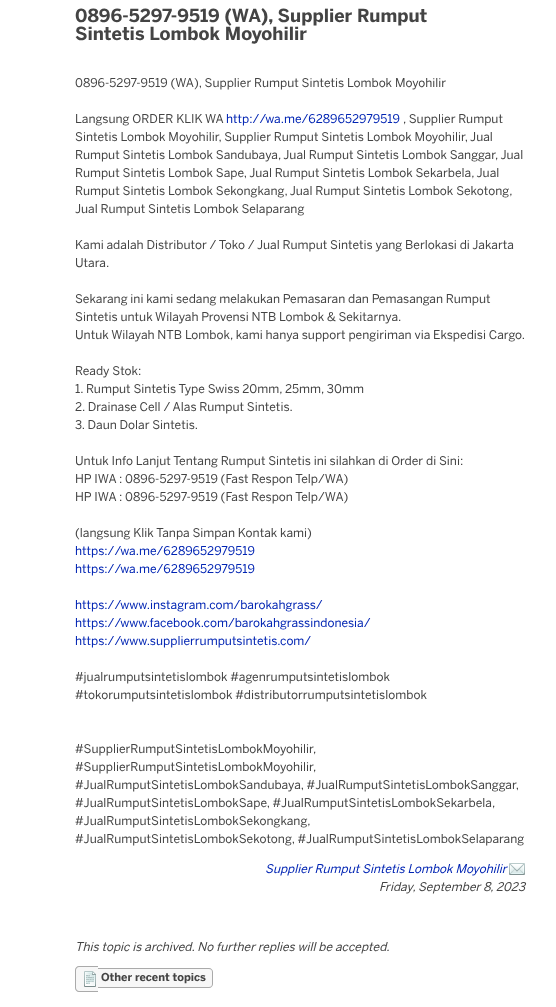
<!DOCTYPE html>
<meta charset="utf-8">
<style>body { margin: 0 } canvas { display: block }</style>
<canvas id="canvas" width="556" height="1007"></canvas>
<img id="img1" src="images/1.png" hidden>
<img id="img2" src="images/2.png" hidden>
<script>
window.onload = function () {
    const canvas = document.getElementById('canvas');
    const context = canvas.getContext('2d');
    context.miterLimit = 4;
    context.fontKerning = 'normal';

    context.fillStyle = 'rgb(255, 255, 255)';
    context.fillRect(0, 0, 556, 1007);
    context.drawImage(document.getElementById('img1'), 509, 863, 16, 12);
    context.fillStyle = 'rgb(247, 247, 247)';
    context.beginPath();
    context.roundRect(75, 966, 23, 26, [4, 0, 0, 4]);
    context.fill();
    context.fillStyle = 'rgb(170, 170, 170)';
    context.beginPath();
    context.moveTo(79, 966);
    context.lineTo(98, 966);
    context.lineTo(98, 992);
    context.lineTo(79, 992);
    context.bezierCurveTo(77, 992, 75, 990, 75, 988);
    context.lineTo(75, 970);
    context.bezierCurveTo(75, 968, 77, 966, 79, 966);
    context.closePath();
    context.moveTo(79, 967);
    context.lineTo(98, 967);
    context.lineTo(98, 991);
    context.lineTo(79, 991);
    context.bezierCurveTo(77.5, 991, 76, 989.5, 76, 988);
    context.lineTo(76, 970);
    context.bezierCurveTo(76, 968.5, 77.5, 967, 79, 967);
    context.closePath();
    context.fill('evenodd');
    context.drawImage(document.getElementById('img2'), 84, 971, 12, 16);
    context.fillStyle = 'rgb(247, 247, 247)';
    context.beginPath();
    context.roundRect(98, 968, 115, 20, [0, 4, 4, 0]);
    context.fill();
    context.fillStyle = 'rgb(170, 170, 170)';
    context.beginPath();
    context.moveTo(98, 968);
    context.lineTo(209, 968);
    context.bezierCurveTo(211, 968, 213, 970, 213, 972);
    context.lineTo(213, 984);
    context.bezierCurveTo(213, 986, 211, 988, 209, 988);
    context.lineTo(98, 988);
    context.closePath();
    context.moveTo(98, 969);
    context.lineTo(209, 969);
    context.bezierCurveTo(211, 969, 212, 970, 212, 972);
    context.lineTo(212, 984);
    context.bezierCurveTo(212, 986, 211, 987, 209, 987);
    context.lineTo(98, 987);
    context.closePath();
    context.fill('evenodd');
    context.font = 'bold 18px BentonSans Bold';
    context.fillStyle = 'rgb(68, 68, 68)';
    context.fillText('0896-5297-9519 (WA), Supplier Rumput', 75, 22);
    context.fillText('Sintetis Lombok Moyohilir', 75, 40);
    context.font = '12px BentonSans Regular';
    context.fillText('0896-5297-9519 (WA), Supplier Rumput Sintetis Lombok Moyohilir', 75, 87);
    context.fillText('Langsung ORDER KLIK WA', 75, 123);
    context.fillStyle = 'rgb(0, 36, 179)';
    context.fillText('http://wa.me/6289652979519', 226, 123);
    context.fillStyle = 'rgb(68, 68, 68)';
    context.fillText(', Supplier Rumput', 403, 123);
    context.fillText('Sintetis Lombok Moyohilir, Supplier Rumput Sintetis Lombok Moyohilir, Jual', 75, 141);
    context.fillText('Rumput Sintetis Lombok Sandubaya, Jual Rumput Sintetis Lombok Sanggar, Jual', 75, 159);
    context.fillText('Rumput Sintetis Lombok Sape, Jual Rumput Sintetis Lombok Sekarbela, Jual', 75, 177);
    context.fillText('Rumput Sintetis Lombok Sekongkang, Jual Rumput Sintetis Lombok Sekotong,', 75, 195);
    context.fillText('Jual Rumput Sintetis Lombok Selaparang', 75, 213);
    context.fillText('Kami adalah Distributor / Toko / Jual Rumput Sintetis yang Berlokasi di Jakarta', 75, 249);
    context.fillText('Utara.', 75, 267);
    context.fillText('Sekarang ini kami sedang melakukan Pemasaran dan Pemasangan Rumput', 75, 303);
    context.fillText('Sintetis untuk Wilayah Provensi NTB Lombok & Sekitarnya.', 75, 321);
    context.fillText('Untuk Wilayah NTB Lombok, kami hanya support pengiriman via Ekspedisi Cargo.', 75, 339);
    context.fillText('Ready Stok:', 75, 375);
    context.fillText('1. Rumput Sintetis Type Swiss 20mm, 25mm, 30mm', 75, 393);
    context.fillText('2. Drainase Cell / Alas Rumput Sintetis.', 75, 411);
    context.fillText('3. Daun Dolar Sintetis.', 75, 429);
    context.fillText('Untuk Info Lanjut Tentang Rumput Sintetis ini silahkan di Order di Sini:', 75, 465);
    context.fillText('HP IWA : 0896-5297-9519 (Fast Respon Telp/WA)', 75, 483);
    context.fillText('HP IWA : 0896-5297-9519 (Fast Respon Telp/WA)', 75, 501);
    context.fillText('(langsung Klik Tanpa Simpan Kontak kami)', 75, 537);
    context.fillStyle = 'rgb(0, 36, 179)';
    context.fillText('https://wa.me/6289652979519', 75, 555);
    context.fillText('https://wa.me/6289652979519', 75, 573);
    context.fillText('https://www.instagram.com/barokahgrass/', 75, 609);
    context.fillText('https://www.facebook.com/barokahgrassindonesia/', 75, 627);
    context.fillText('https://www.supplierrumputsintetis.com/', 75, 645);
    context.fillStyle = 'rgb(68, 68, 68)';
    context.fillText('#jualrumputsintetislombok #agenrumputsintetislombok', 75, 681);
    context.fillText('#tokorumputsintetislombok #distributorrumputsintetislombok', 75, 699);
    context.fillText('#SupplierRumputSintetisLombokMoyohilir,', 75, 753);
    context.fillText('#SupplierRumputSintetisLombokMoyohilir,', 75, 771);
    context.fillText('#JualRumputSintetisLombokSandubaya, #JualRumputSintetisLombokSanggar,', 75, 789);
    context.fillText('#JualRumputSintetisLombokSape, #JualRumputSintetisLombokSekarbela,', 75, 807);
    context.fillText('#JualRumputSintetisLombokSekongkang,', 75, 825);
    context.fillText('#JualRumputSintetisLombokSekotong, #JualRumputSintetisLombokSelaparang', 75, 843);
    context.font = 'italic 12px BentonSans Regular';
    context.fillStyle = 'rgb(0, 36, 179)';
    context.fillText('Supplier Rumput Sintetis Lombok Moyohilir', 265, 873);
    context.fillStyle = 'rgb(68, 68, 68)';
    context.fillText('Friday, September 8, 2023', 379, 891);
    context.fillText('This topic is archived. No further replies will be accepted.', 75, 951);
    context.font = 'bold 11px BentonSans Bold';
    context.fillText('Other recent topics', 101, 981);
};
</script>
